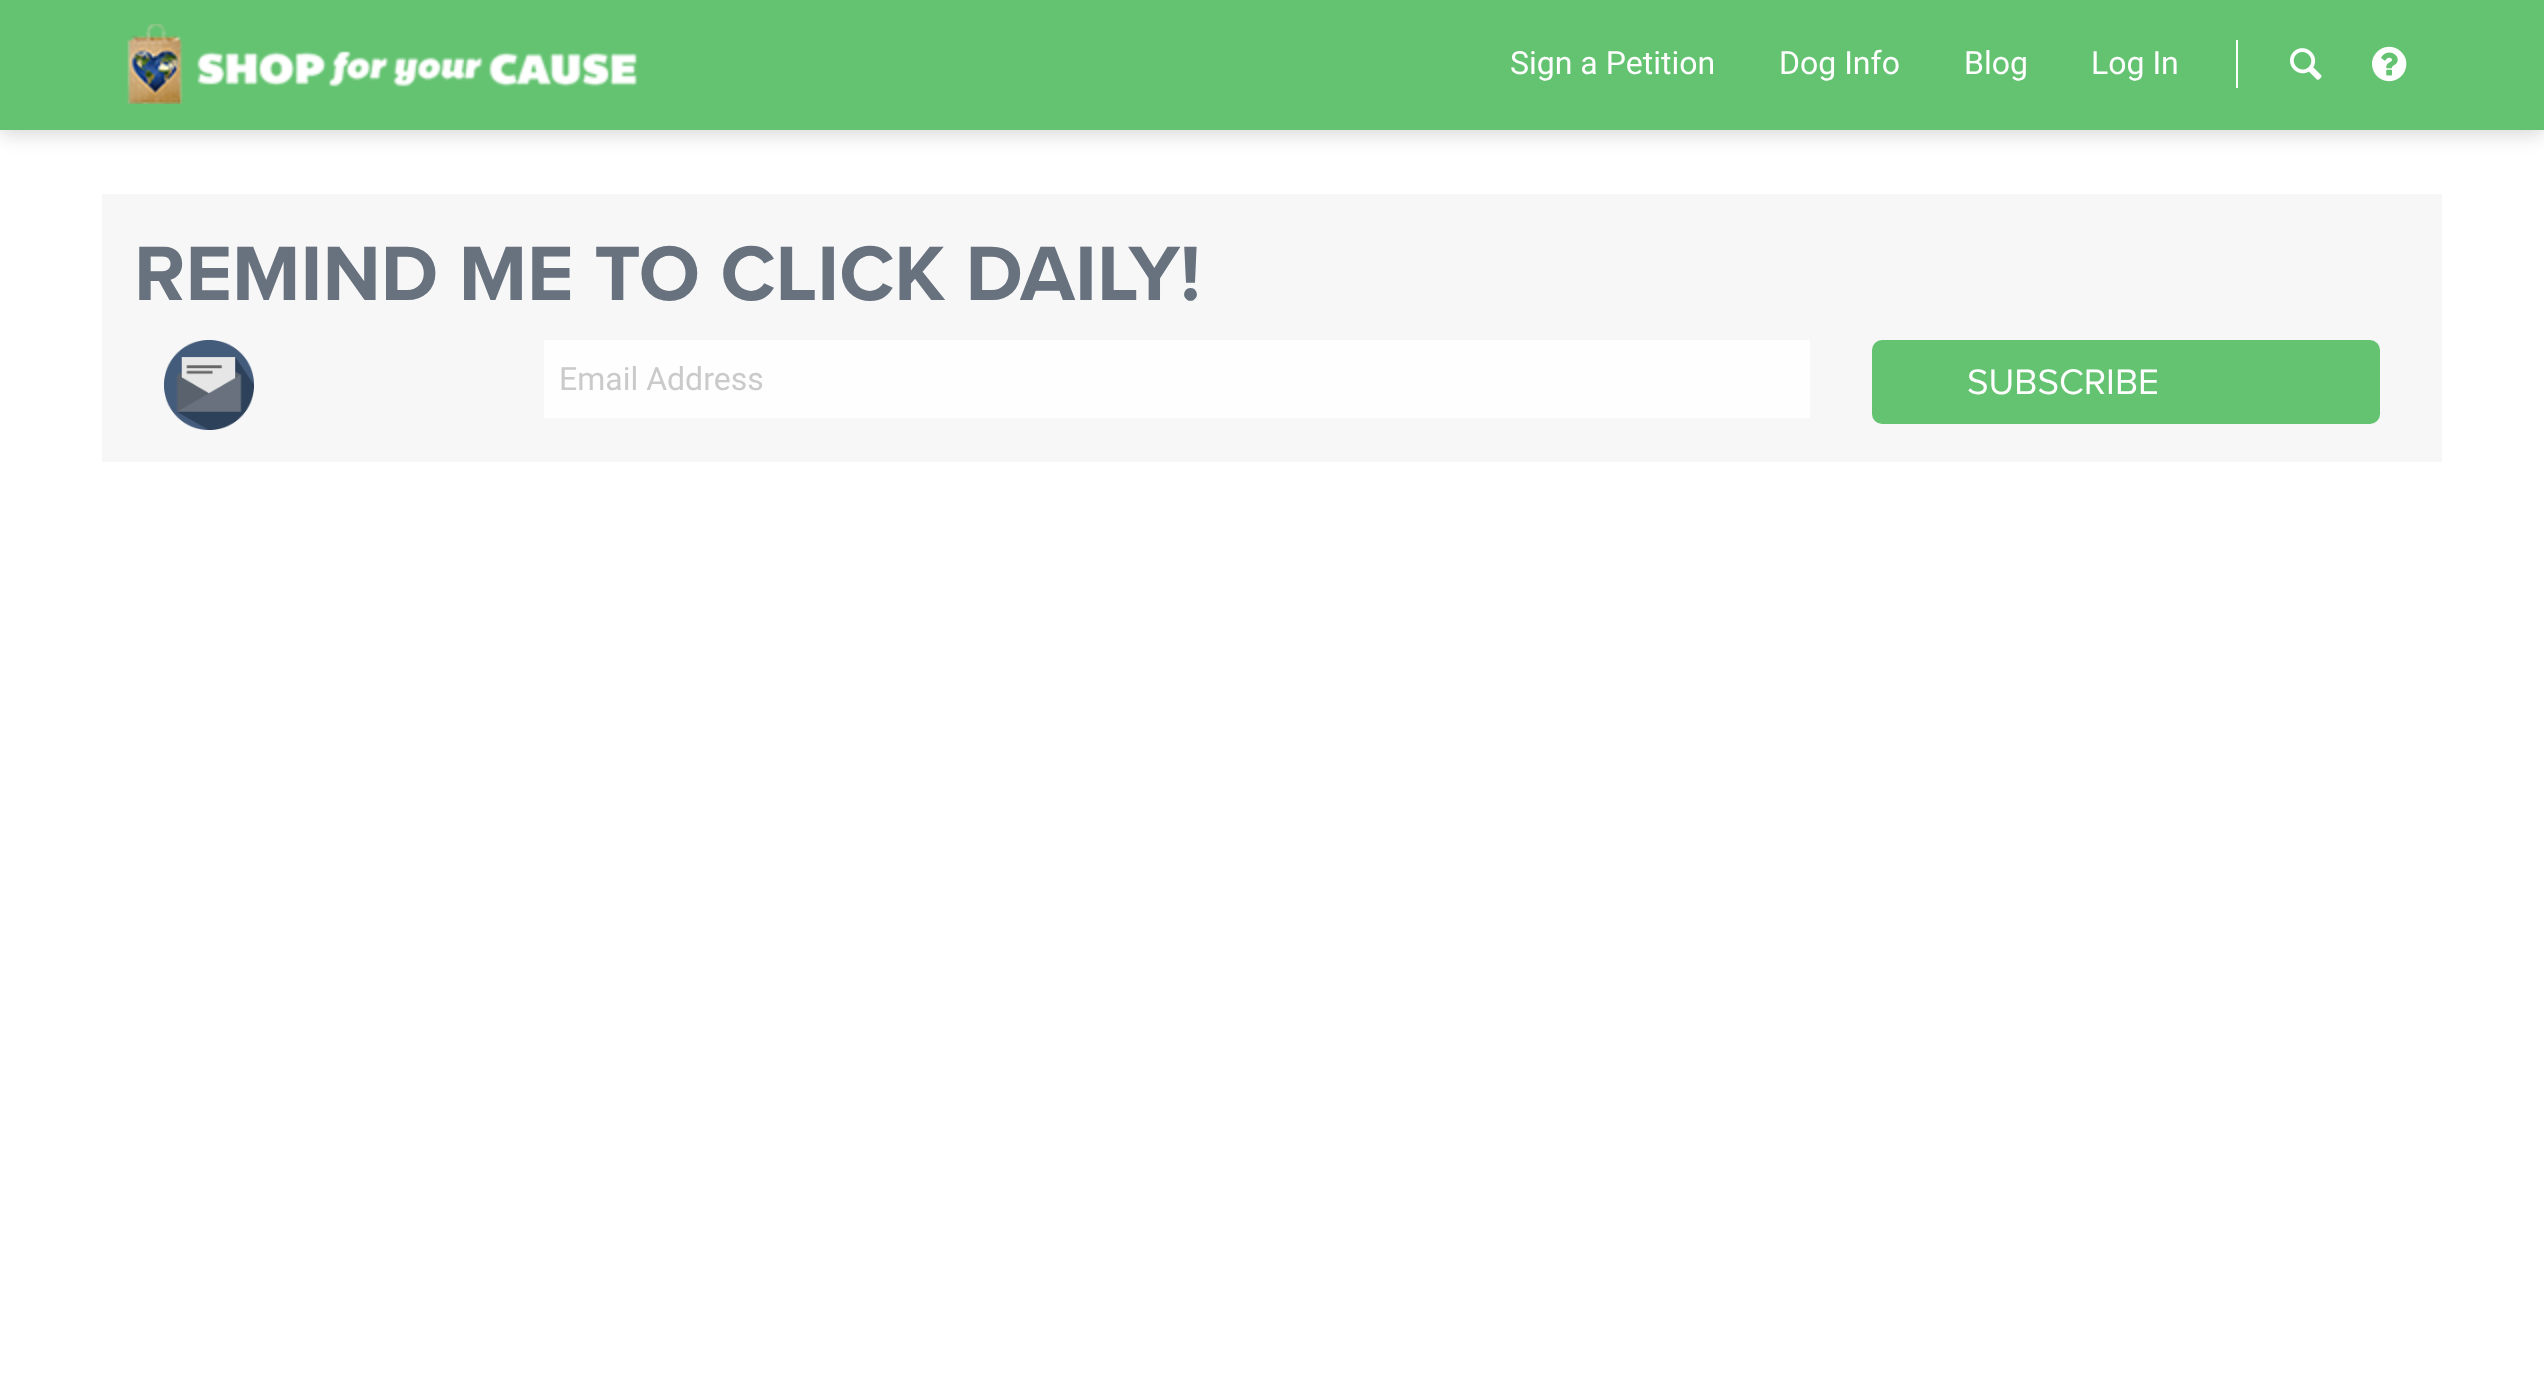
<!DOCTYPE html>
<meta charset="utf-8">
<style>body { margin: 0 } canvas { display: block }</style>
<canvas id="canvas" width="2544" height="1394"></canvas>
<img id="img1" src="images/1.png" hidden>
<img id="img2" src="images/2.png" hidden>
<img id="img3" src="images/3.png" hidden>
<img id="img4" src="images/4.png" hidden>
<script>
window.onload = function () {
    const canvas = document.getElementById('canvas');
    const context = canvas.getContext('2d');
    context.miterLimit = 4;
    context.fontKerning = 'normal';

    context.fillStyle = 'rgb(255, 255, 255)';
    context.fillRect(0, 0, 2544, 1394);
    context.fillStyle = 'rgba(0, 0, 0, 0.16)';
    context.filter = 'blur(10px)';
    context.beginPath();
    context.rect(0, 4, 2544, 130);
    context.fill();
    context.filter = 'none';
    context.fillStyle = 'rgb(100, 195, 113)';
    context.fillRect(0, 0, 2544, 130);
    context.drawImage(document.getElementById('img1'), 127, 24, 511, 80);
    context.fillStyle = 'rgb(254, 254, 254)';
    context.fillRect(2236, 40, 2, 48);
    context.drawImage(document.getElementById('img2'), 2290, 48, 32, 32);
    context.drawImage(document.getElementById('img3'), 2372, 46, 35, 36);
    context.fillStyle = 'rgb(247, 247, 247)';
    context.fillRect(102, 194, 2340, 268);
    context.drawImage(document.getElementById('img4'), 164, 340, 90, 90);
    context.fillStyle = 'rgb(254, 254, 254)';
    context.fillRect(544, 340, 1266, 78);
    context.fillStyle = 'rgb(100, 195, 113)';
    context.beginPath();
    context.roundRect(1872, 340, 508, 84, 10);
    context.fill();
    context.font = '32px Roboto';
    context.fillStyle = 'rgb(254, 254, 254)';
    context.fillText('Sign a Petition', 1510, 74);
    context.fillText('Dog Info', 1779, 74);
    context.fillText('Blog', 1964, 74);
    context.fillText('Log In', 2091, 74);
    context.font = 'bold 80px Proxima Nova';
    context.fillStyle = 'rgb(104, 113, 126)';
    context.fillText('REMIND ME TO CLICK DAILY!', 134, 300);
    context.font = '32px Roboto';
    context.fillStyle = 'rgb(202, 202, 202)';
    context.fillText('Email Address', 559, 390);
    context.font = '36.75px Proxima Nova';
    context.fillStyle = 'rgb(254, 254, 254)';
    context.fillText('SUBSCRIBE', 1967, 394);
};
</script>
